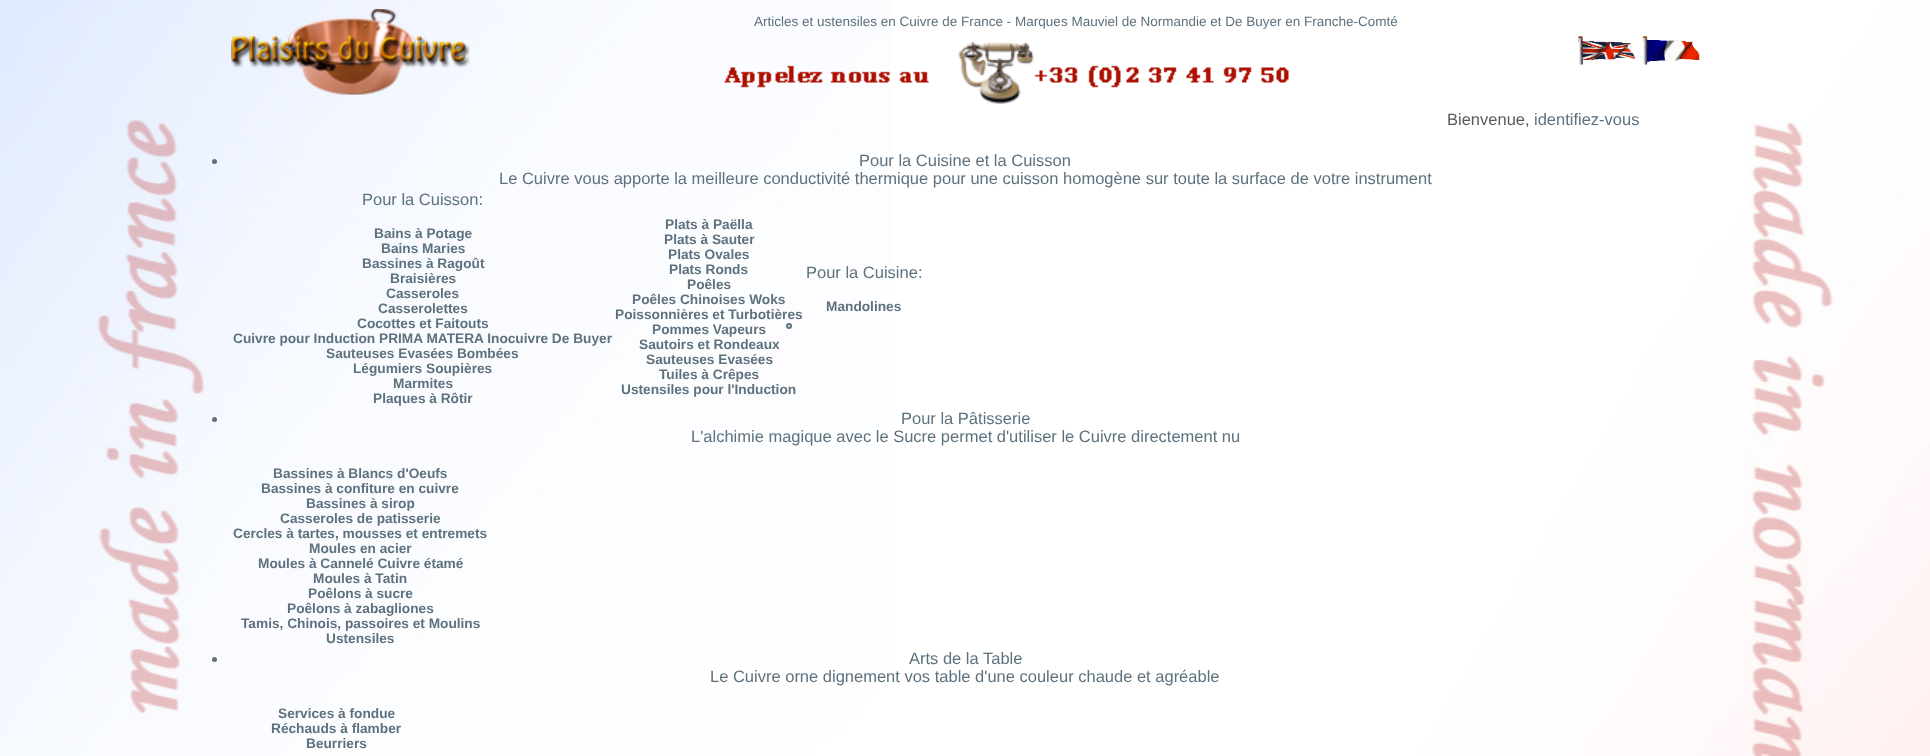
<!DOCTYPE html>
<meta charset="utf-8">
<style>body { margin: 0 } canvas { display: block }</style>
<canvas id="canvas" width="1930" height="756"></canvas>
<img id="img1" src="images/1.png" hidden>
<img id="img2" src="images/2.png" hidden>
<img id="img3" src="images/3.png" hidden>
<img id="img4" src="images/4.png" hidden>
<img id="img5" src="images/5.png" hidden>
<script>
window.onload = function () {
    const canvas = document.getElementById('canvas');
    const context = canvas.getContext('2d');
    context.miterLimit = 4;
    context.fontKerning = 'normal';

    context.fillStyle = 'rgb(255, 255, 255)';
    context.fillRect(0, 0, 1930, 756);
    context.drawImage(document.getElementById('img1'), 0, 0, 1930, 756);
    context.drawImage(document.getElementById('img2'), 231, 9, 239, 86);
    context.drawImage(document.getElementById('img3'), 1578, 36, 57, 29);
    context.drawImage(document.getElementById('img4'), 1642, 36, 58, 29);
    context.drawImage(document.getElementById('img5'), 724, 41, 565, 63);
    context.fillStyle = 'rgb(93, 113, 126)';
    context.beginPath();
    context.arc(214.5, 161.5, 2.5, 0, 2 * Math.PI);
    context.fill();
    context.beginPath();
    context.arc(789, 326, 2, 0, 2 * Math.PI);
    context.strokeStyle = 'rgb(93, 113, 126)';
    context.lineWidth = 2;
    context.stroke();
    context.beginPath();
    context.arc(214.5, 419.5, 2.5, 0, 2 * Math.PI);
    context.fill();
    context.beginPath();
    context.arc(214.5, 659.5, 2.5, 0, 2 * Math.PI);
    context.fill();
    context.font = '13.5px Liberation Sans';
    context.fillText('Articles et ustensiles en Cuivre de France - Marques Mauviel de Normandie et De Buyer en Franche-Comté', 754, 26);
    context.font = '16.5px Liberation Sans';
    context.fillStyle = 'rgb(89, 90, 94)';
    context.fillText('Bienvenue,', 1447, 125);
    context.fillStyle = 'rgb(93, 113, 126)';
    context.fillText('identifiez-vous', 1534, 125);
    context.fillText('Pour la Cuisine et la Cuisson', 859, 166);
    context.fillText('Le Cuivre vous apporte la meilleure conductivité thermique pour une cuisson homogène sur toute la surface de votre instrument', 499, 184);
    context.fillText('Pour la Cuisson:', 362, 205);
    context.font = 'bold 13.7px Liberation Sans';
    context.fillText('Bains à Potage', 374, 238);
    context.fillText('Bains Maries', 381, 253);
    context.fillText('Bassines à Ragoût', 362, 268);
    context.fillText('Braisières', 390, 283);
    context.fillText('Casseroles', 386, 298);
    context.fillText('Casserolettes', 378, 313);
    context.fillText('Cocottes et Faitouts', 357, 328);
    context.fillText('Cuivre pour Induction PRIMA MATERA Inocuivre De Buyer', 233, 343);
    context.fillText('Sauteuses Evasées Bombées', 326, 358);
    context.fillText('Légumiers Soupières', 353, 373);
    context.fillText('Marmites', 393, 388);
    context.fillText('Plaques à Rôtir', 373, 403);
    context.fillText('Plats à Paëlla', 665, 229);
    context.fillText('Plats à Sauter', 664, 244);
    context.fillText('Plats Ovales', 668, 259);
    context.fillText('Plats Ronds', 669, 274);
    context.fillText('Poêles', 687, 289);
    context.fillText('Poêles Chinoises Woks', 632, 304);
    context.fillText('Poissonnières et Turbotières', 615, 319);
    context.fillText('Pommes Vapeurs', 652, 334);
    context.fillText('Sautoirs et Rondeaux', 639, 349);
    context.fillText('Sauteuses Evasées', 646, 364);
    context.fillText('Tuiles à Crêpes', 659, 379);
    context.fillText('Ustensiles pour l\'Induction', 621, 394);
    context.font = '16.5px Liberation Sans';
    context.fillText('Pour la Cuisine:', 806, 278);
    context.font = 'bold 13.7px Liberation Sans';
    context.fillText('Mandolines', 826, 311);
    context.font = '16.5px Liberation Sans';
    context.fillText('Pour la Pâtisserie', 901, 424);
    context.fillText('L\'alchimie magique avec le Sucre permet d\'utiliser le Cuivre directement nu', 691, 442);
    context.font = 'bold 13.7px Liberation Sans';
    context.fillText('Bassines à Blancs d\'Oeufs', 273, 478);
    context.fillText('Bassines à confiture en cuivre', 261, 493);
    context.fillText('Bassines à sirop', 306, 508);
    context.fillText('Casseroles de patisserie', 280, 523);
    context.fillText('Cercles à tartes, mousses et entremets', 233, 538);
    context.fillText('Moules en acier', 309, 553);
    context.fillText('Moules à Cannelé Cuivre étamé', 258, 568);
    context.fillText('Moules à Tatin', 313, 583);
    context.fillText('Poêlons à sucre', 308, 598);
    context.fillText('Poêlons à zabagliones', 287, 613);
    context.fillText('Tamis, Chinois, passoires et Moulins', 241, 628);
    context.fillText('Ustensiles', 326, 643);
    context.font = '16.5px Liberation Sans';
    context.fillText('Arts de la Table', 909, 664);
    context.fillText('Le Cuivre orne dignement vos table d\'une couleur chaude et agréable', 710, 682);
    context.font = 'bold 13.7px Liberation Sans';
    context.fillText('Services à fondue', 278, 718);
    context.fillText('Réchauds à flamber', 271, 733);
    context.fillText('Beurriers', 306, 748);
};
</script>
